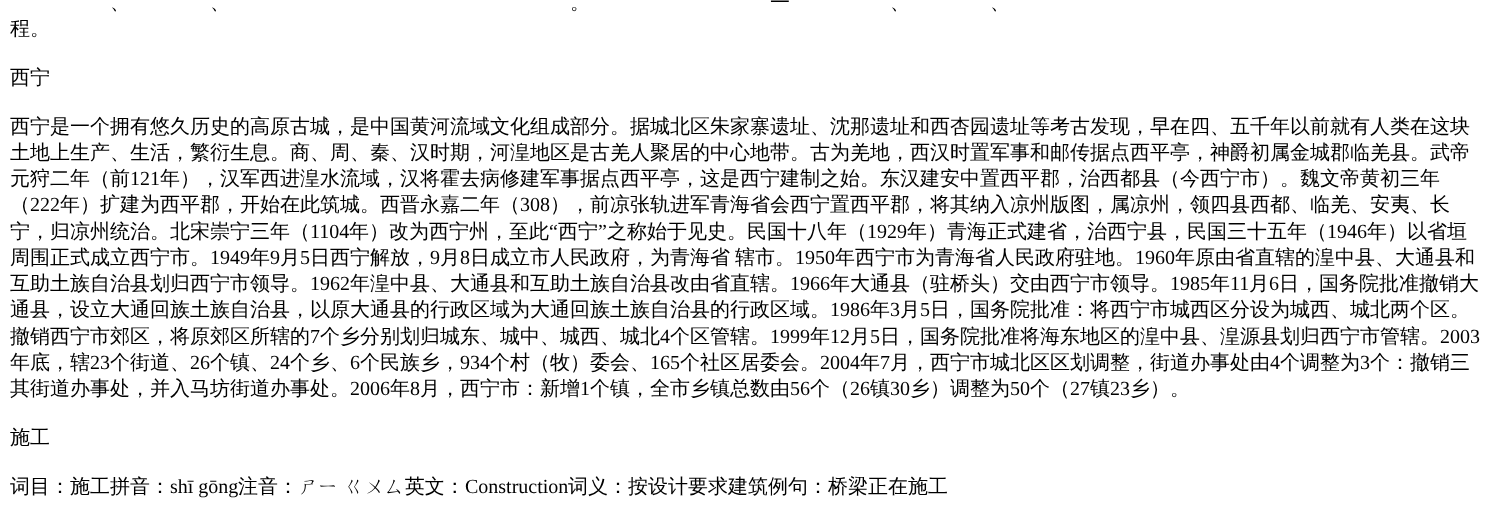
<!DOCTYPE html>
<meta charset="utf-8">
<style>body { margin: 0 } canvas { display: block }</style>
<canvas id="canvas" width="1491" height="532"></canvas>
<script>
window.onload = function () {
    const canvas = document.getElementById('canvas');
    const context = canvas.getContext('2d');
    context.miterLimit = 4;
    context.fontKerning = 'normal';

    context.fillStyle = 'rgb(255, 255, 255)';
    context.fillRect(0, 0, 1491, 532);
    context.font = '500 20px WenQuanYi Zen Hei';
    context.fillStyle = 'rgb(0, 0, 0)';
    context.fillText('一', 770, 9);
    context.fillText('、', 110, 9);
    context.fillText('、', 210, 9);
    context.fillText('。', 570, 9);
    context.fillText('、', 890, 9);
    context.fillText('、', 990, 9);
    context.fillText('程。', 10, 35);
    context.fillText('西宁', 10, 84);
    context.fillText('西宁是一个拥有悠久历史的高原古城，是中国黄河流域文化组成部分。据城北区朱家寨遗址、沈那遗址和西杏园遗址等考古发现，早在四、五千年以前就有人类在这块', 10, 133);
    context.fillText('土地上生产、生活，繁衍生息。商、周、秦、汉时期，河湟地区是古羌人聚居的中心地带。古为羌地，西汉时置军事和邮传据点西平亭，神爵初属金城郡临羌县。武帝', 10, 159);
    context.fillText('元狩二年（前', 10, 185);
    context.font = '20px Liberation Serif';
    context.fillText('121', 130, 185);
    context.font = '500 20px WenQuanYi Zen Hei';
    context.fillText('年），汉军西进湟水流域，汉将霍去病修建军事据点西平亭，这是西宁建制之始。东汉建安中置西平郡，治西都县（今西宁市）。魏文帝黄初三年', 160, 185);
    context.fillText('（', 10, 211);
    context.font = '20px Liberation Serif';
    context.fillText('222', 30, 211);
    context.font = '500 20px WenQuanYi Zen Hei';
    context.fillText('年）扩建为西平郡，开始在此筑城。西晋永嘉二年（', 60, 211);
    context.font = '20px Liberation Serif';
    context.fillText('308', 520, 211);
    context.font = '500 20px WenQuanYi Zen Hei';
    context.fillText('），前凉张轨进军青海省会西宁置西平郡，将其纳入凉州版图，属凉州，领四县西都、临羌、安夷、长', 550, 211);
    context.fillText('宁，归凉州统治。北宋崇宁三年（', 10, 238);
    context.font = '20px Liberation Serif';
    context.fillText('1104', 310, 238);
    context.font = '500 20px WenQuanYi Zen Hei';
    context.fillText('年）改为西宁州，至此', 349, 238);
    context.font = '20px Liberation Serif';
    context.fillText('“', 549, 238);
    context.font = '500 20px WenQuanYi Zen Hei';
    context.fillText('西宁', 558, 238);
    context.font = '20px Liberation Serif';
    context.fillText('”', 598, 238);
    context.font = '500 20px WenQuanYi Zen Hei';
    context.fillText('之称始于见史。民国十八年（', 607, 238);
    context.font = '20px Liberation Serif';
    context.fillText('1929', 867, 238);
    context.font = '500 20px WenQuanYi Zen Hei';
    context.fillText('年）青海正式建省，治西宁县，民国三十五年（', 907, 238);
    context.font = '20px Liberation Serif';
    context.fillText('1946', 1327, 238);
    context.font = '500 20px WenQuanYi Zen Hei';
    context.fillText('年）以省垣', 1367, 238);
    context.fillText('周围正式成立西宁市。', 10, 264);
    context.font = '20px Liberation Serif';
    context.fillText('1949', 210, 264);
    context.font = '500 20px WenQuanYi Zen Hei';
    context.fillText('年', 250, 264);
    context.font = '20px Liberation Serif';
    context.fillText('9', 270, 264);
    context.font = '500 20px WenQuanYi Zen Hei';
    context.fillText('月', 280, 264);
    context.font = '20px Liberation Serif';
    context.fillText('5', 300, 264);
    context.font = '500 20px WenQuanYi Zen Hei';
    context.fillText('日西宁解放，', 310, 264);
    context.font = '20px Liberation Serif';
    context.fillText('9', 430, 264);
    context.font = '500 20px WenQuanYi Zen Hei';
    context.fillText('月', 440, 264);
    context.font = '20px Liberation Serif';
    context.fillText('8', 460, 264);
    context.wordSpacing = '-1px';
    context.font = '500 20px WenQuanYi Zen Hei';
    context.fillText('日成立市人民政府，为青海省 辖市。', 470, 264);
    context.wordSpacing = '0px';
    context.font = '20px Liberation Serif';
    context.fillText('1950', 795, 264);
    context.font = '500 20px WenQuanYi Zen Hei';
    context.fillText('年西宁市为青海省人民政府驻地。', 835, 264);
    context.font = '20px Liberation Serif';
    context.fillText('1960', 1135, 264);
    context.font = '500 20px WenQuanYi Zen Hei';
    context.fillText('年原由省直辖的湟中县、大通县和', 1175, 264);
    context.fillText('互助土族自治县划归西宁市领导。', 10, 290);
    context.font = '20px Liberation Serif';
    context.fillText('1962', 310, 290);
    context.font = '500 20px WenQuanYi Zen Hei';
    context.fillText('年湟中县、大通县和互助土族自治县改由省直辖。', 350, 290);
    context.font = '20px Liberation Serif';
    context.fillText('1966', 790, 290);
    context.font = '500 20px WenQuanYi Zen Hei';
    context.fillText('年大通县（驻桥头）交由西宁市领导。', 830, 290);
    context.font = '20px Liberation Serif';
    context.fillText('1985', 1170, 290);
    context.font = '500 20px WenQuanYi Zen Hei';
    context.fillText('年', 1210, 290);
    context.font = '20px Liberation Serif';
    context.fillText('11', 1230, 290);
    context.font = '500 20px WenQuanYi Zen Hei';
    context.fillText('月', 1249, 290);
    context.font = '20px Liberation Serif';
    context.fillText('6', 1269, 290);
    context.font = '500 20px WenQuanYi Zen Hei';
    context.fillText('日，国务院批准撤销大', 1279, 290);
    context.fillText('通县，设立大通回族土族自治县，以原大通县的行政区域为大通回族土族自治县的行政区域。', 10, 316);
    context.font = '20px Liberation Serif';
    context.fillText('1986', 830, 316);
    context.font = '500 20px WenQuanYi Zen Hei';
    context.fillText('年', 870, 316);
    context.font = '20px Liberation Serif';
    context.fillText('3', 890, 316);
    context.font = '500 20px WenQuanYi Zen Hei';
    context.fillText('月', 900, 316);
    context.font = '20px Liberation Serif';
    context.fillText('5', 920, 316);
    context.font = '500 20px WenQuanYi Zen Hei';
    context.fillText('日，国务院批准：将西宁市城西区分设为城西、城北两个区。', 930, 316);
    context.fillText('撤销西宁市郊区，将原郊区所辖的', 10, 343);
    context.font = '20px Liberation Serif';
    context.fillText('7', 310, 343);
    context.font = '500 20px WenQuanYi Zen Hei';
    context.fillText('个乡分别划归城东、城中、城西、城北', 320, 343);
    context.font = '20px Liberation Serif';
    context.fillText('4', 660, 343);
    context.font = '500 20px WenQuanYi Zen Hei';
    context.fillText('个区管辖。', 670, 343);
    context.font = '20px Liberation Serif';
    context.fillText('1999', 770, 343);
    context.font = '500 20px WenQuanYi Zen Hei';
    context.fillText('年', 810, 343);
    context.font = '20px Liberation Serif';
    context.fillText('12', 830, 343);
    context.font = '500 20px WenQuanYi Zen Hei';
    context.fillText('月', 850, 343);
    context.font = '20px Liberation Serif';
    context.fillText('5', 870, 343);
    context.font = '500 20px WenQuanYi Zen Hei';
    context.fillText('日，国务院批准将海东地区的湟中县、湟源县划归西宁市管辖。', 880, 343);
    context.font = '20px Liberation Serif';
    context.fillText('2003', 1440, 343);
    context.font = '500 20px WenQuanYi Zen Hei';
    context.fillText('年底，辖', 10, 369);
    context.font = '20px Liberation Serif';
    context.fillText('23', 90, 369);
    context.font = '500 20px WenQuanYi Zen Hei';
    context.fillText('个街道、', 110, 369);
    context.font = '20px Liberation Serif';
    context.fillText('26', 190, 369);
    context.font = '500 20px WenQuanYi Zen Hei';
    context.fillText('个镇、', 210, 369);
    context.font = '20px Liberation Serif';
    context.fillText('24', 270, 369);
    context.font = '500 20px WenQuanYi Zen Hei';
    context.fillText('个乡、', 290, 369);
    context.font = '20px Liberation Serif';
    context.fillText('6', 350, 369);
    context.font = '500 20px WenQuanYi Zen Hei';
    context.fillText('个民族乡，', 360, 369);
    context.font = '20px Liberation Serif';
    context.fillText('934', 460, 369);
    context.font = '500 20px WenQuanYi Zen Hei';
    context.fillText('个村（牧）委会、', 490, 369);
    context.font = '20px Liberation Serif';
    context.fillText('165', 650, 369);
    context.font = '500 20px WenQuanYi Zen Hei';
    context.fillText('个社区居委会。', 680, 369);
    context.font = '20px Liberation Serif';
    context.fillText('2004', 820, 369);
    context.font = '500 20px WenQuanYi Zen Hei';
    context.fillText('年', 860, 369);
    context.font = '20px Liberation Serif';
    context.fillText('7', 880, 369);
    context.font = '500 20px WenQuanYi Zen Hei';
    context.fillText('月，西宁市城北区区划调整，街道办事处由', 890, 369);
    context.font = '20px Liberation Serif';
    context.fillText('4', 1270, 369);
    context.font = '500 20px WenQuanYi Zen Hei';
    context.fillText('个调整为', 1280, 369);
    context.font = '20px Liberation Serif';
    context.fillText('3', 1360, 369);
    context.font = '500 20px WenQuanYi Zen Hei';
    context.fillText('个：撤销三', 1370, 369);
    context.fillText('其街道办事处，并入马坊街道办事处。', 10, 395);
    context.font = '20px Liberation Serif';
    context.fillText('2006', 350, 395);
    context.font = '500 20px WenQuanYi Zen Hei';
    context.fillText('年', 390, 395);
    context.font = '20px Liberation Serif';
    context.fillText('8', 410, 395);
    context.font = '500 20px WenQuanYi Zen Hei';
    context.fillText('月，西宁市：新增', 420, 395);
    context.font = '20px Liberation Serif';
    context.fillText('1', 580, 395);
    context.font = '500 20px WenQuanYi Zen Hei';
    context.fillText('个镇，全市乡镇总数由', 590, 395);
    context.font = '20px Liberation Serif';
    context.fillText('56', 790, 395);
    context.font = '500 20px WenQuanYi Zen Hei';
    context.fillText('个（', 810, 395);
    context.font = '20px Liberation Serif';
    context.fillText('26', 850, 395);
    context.font = '500 20px WenQuanYi Zen Hei';
    context.fillText('镇', 870, 395);
    context.font = '20px Liberation Serif';
    context.fillText('30', 890, 395);
    context.font = '500 20px WenQuanYi Zen Hei';
    context.fillText('乡）调整为', 910, 395);
    context.font = '20px Liberation Serif';
    context.fillText('50', 1010, 395);
    context.font = '500 20px WenQuanYi Zen Hei';
    context.fillText('个（', 1030, 395);
    context.font = '20px Liberation Serif';
    context.fillText('27', 1070, 395);
    context.font = '500 20px WenQuanYi Zen Hei';
    context.fillText('镇', 1090, 395);
    context.font = '20px Liberation Serif';
    context.fillText('23', 1110, 395);
    context.font = '500 20px WenQuanYi Zen Hei';
    context.fillText('乡）。', 1130, 395);
    context.fillText('施工', 10, 444);
    context.fillText('词目：施工拼音：', 10, 493);
    context.font = '20px Liberation Serif';
    context.fillText('shī gōng', 170, 493);
    context.font = '500 20px WenQuanYi Zen Hei';
    context.fillText('注音：ㄕㄧ', 238, 493);
    context.fillText('ㄍㄨㄙ英文：', 344, 493);
    context.font = '20px Liberation Serif';
    context.fillText('Construction', 465, 493);
    context.font = '500 20px WenQuanYi Zen Hei';
    context.fillText('词义：按设计要求建筑例句：桥梁正在施工', 568, 493);
};
</script>
